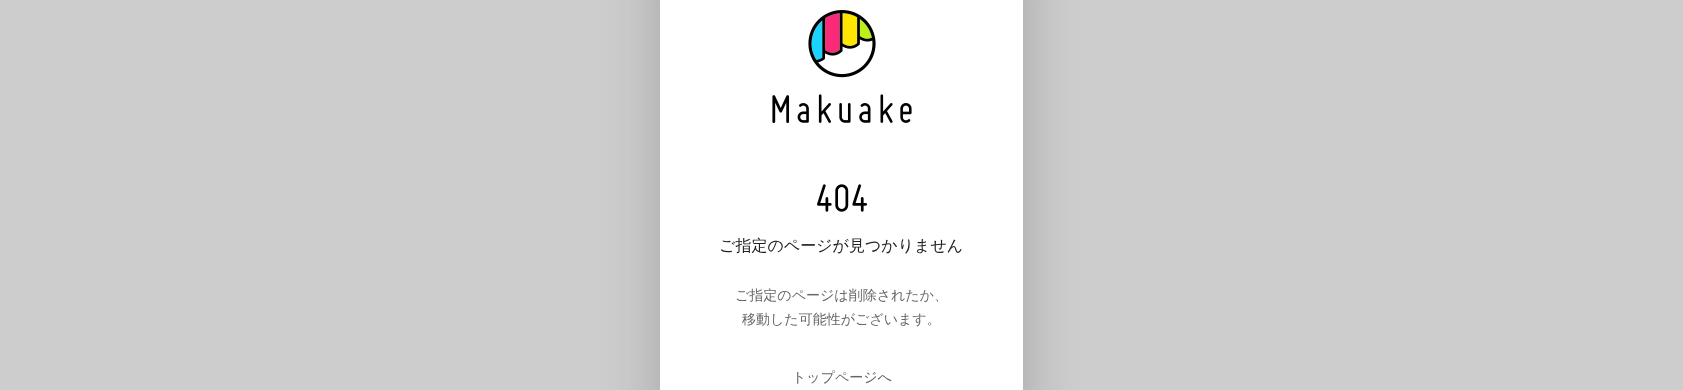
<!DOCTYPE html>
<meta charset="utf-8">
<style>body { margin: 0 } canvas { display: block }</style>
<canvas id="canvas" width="1683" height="390"></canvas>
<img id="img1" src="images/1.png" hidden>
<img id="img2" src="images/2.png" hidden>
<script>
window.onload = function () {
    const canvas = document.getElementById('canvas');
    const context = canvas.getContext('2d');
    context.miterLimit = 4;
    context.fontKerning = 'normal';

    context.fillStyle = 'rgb(205, 205, 205)';
    context.fillRect(0, 0, 1683, 390);
    context.fillStyle = 'rgba(0, 0, 0, 0.2)';
    context.filter = 'blur(28px)';
    context.beginPath();
    context.roundRect(660, -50, 363, 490, 8);
    context.fill();
    context.filter = 'none';
    context.fillStyle = 'rgb(255, 255, 255)';
    context.fillRect(660, 0, 363, 390);
    context.drawImage(document.getElementById('img1'), 772, 10, 140, 113);
    context.drawImage(document.getElementById('img2'), 817, 184, 50, 28);
    context.font = '500 16px WenQuanYi Zen Hei';
    context.fillStyle = 'rgb(34, 34, 34)';
    context.fillText('ご指定のページが見つかりません', 719, 251);
    context.font = '500 14px WenQuanYi Zen Hei';
    context.fillStyle = 'rgb(103, 103, 103)';
    context.fillText('ご指定のページは削除されたか、', 735, 300);
    context.fillText('移動した可能性がございます。', 742, 324);
    context.fillText('トップページへ', 792, 382);
};
</script>
